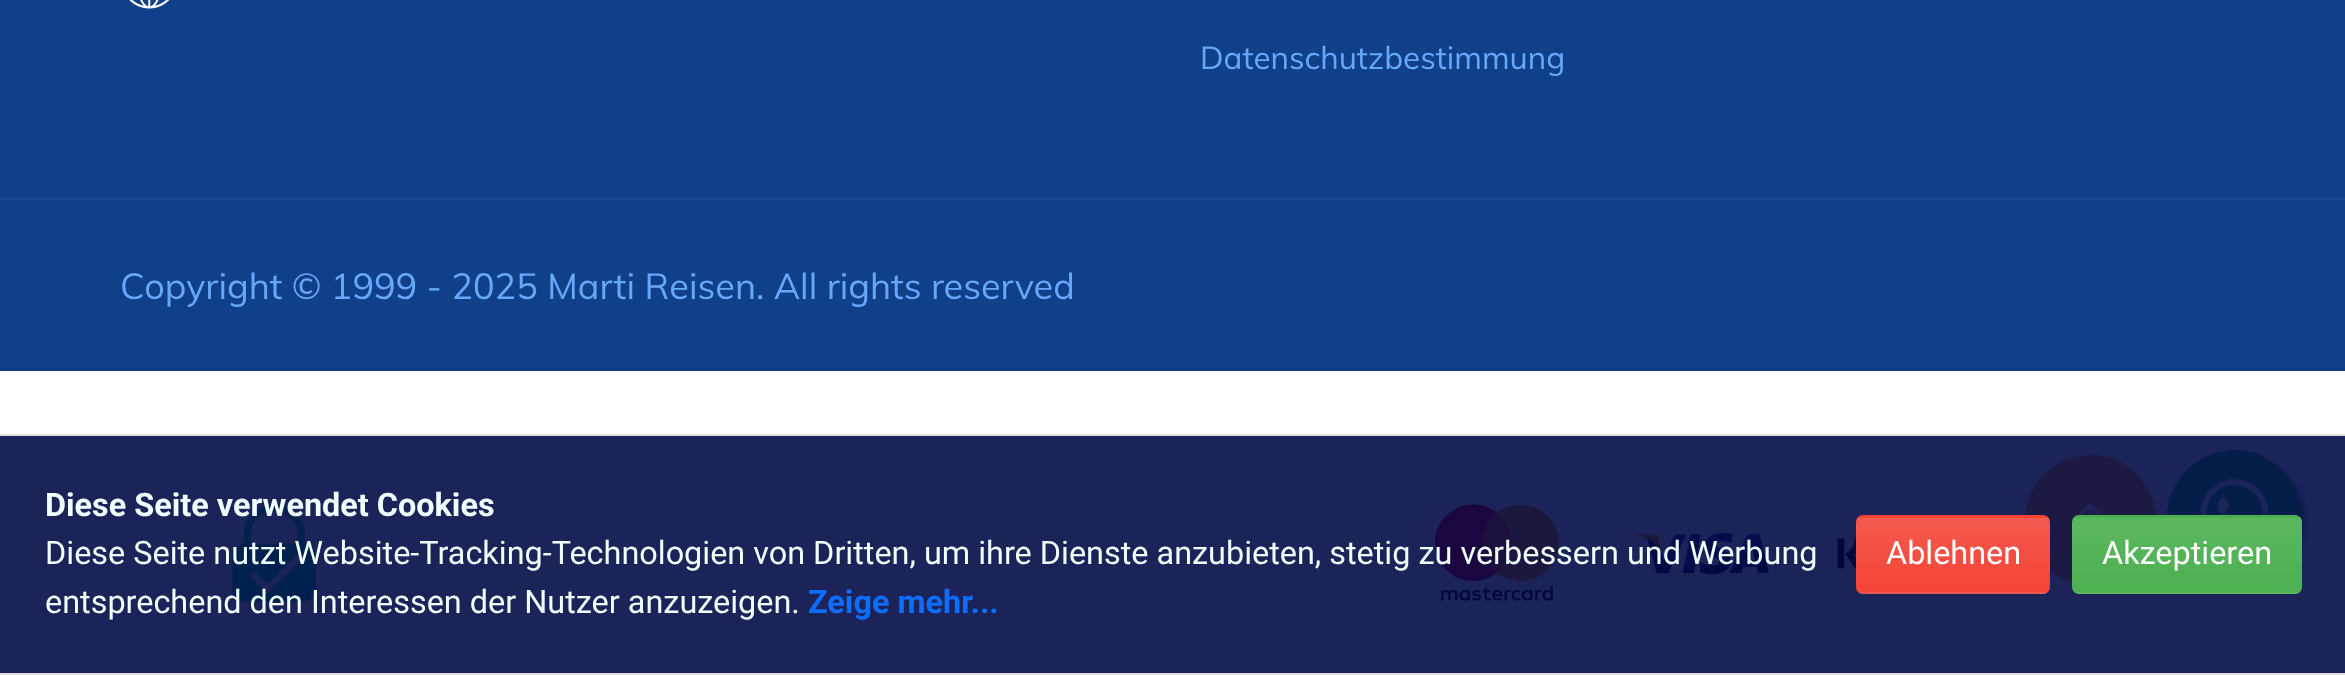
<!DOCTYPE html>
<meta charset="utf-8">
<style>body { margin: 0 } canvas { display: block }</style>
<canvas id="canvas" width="2345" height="675"></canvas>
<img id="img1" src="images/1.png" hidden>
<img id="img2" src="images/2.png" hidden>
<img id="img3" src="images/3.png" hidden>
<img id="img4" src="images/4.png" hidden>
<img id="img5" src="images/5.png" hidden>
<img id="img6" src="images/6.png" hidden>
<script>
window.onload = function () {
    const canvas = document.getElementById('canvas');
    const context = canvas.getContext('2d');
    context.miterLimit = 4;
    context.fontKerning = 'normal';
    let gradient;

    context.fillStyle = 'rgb(255, 255, 255)';
    context.fillRect(0, 0, 2345, 675);
    context.fillStyle = 'rgb(17, 64, 139)';
    context.fillRect(0, 0, 2345, 198);
    context.drawImage(document.getElementById('img1'), 129, 0, 41, 9);
    context.fillRect(0, 200, 2345, 171);
    context.fillStyle = 'rgb(28, 72, 140)';
    context.fillRect(0, 198, 2345, 2);
    context.drawImage(document.getElementById('img2'), 232, 504, 85, 100);
    context.drawImage(document.getElementById('img3'), 1434, 504, 125, 97);
    context.drawImage(document.getElementById('img4'), 1634, 533, 135, 41);
    context.drawImage(document.getElementById('img5'), 1837, 538, 19, 31);
    context.fillStyle = 'rgb(255, 172, 51)';
    context.beginPath();
    context.roundRect(2025, 455, 131, 130, 65);
    context.fill();
    context.fillStyle = 'rgb(255, 255, 255)';
    context.beginPath();
    context.moveTo(2090, 503);
    context.lineTo(2078.5, 514.5);
    context.lineTo(2080.5, 516.5);
    context.lineTo(2089, 508);
    context.lineTo(2089, 533);
    context.lineTo(2091.5, 533);
    context.lineTo(2091.5, 508);
    context.lineTo(2100, 516.5);
    context.lineTo(2102, 514.5);
    context.closePath();
    context.fill();
    context.fillStyle = 'rgb(153, 153, 153)';
    context.filter = 'blur(3.5px)';
    context.beginPath();
    context.roundRect(2171, 455, 135, 135, 67.5);
    context.fill();
    context.filter = 'none';
    context.fillStyle = 'rgb(37, 211, 102)';
    context.beginPath();
    context.arc(2234.5, 517.5, 67.5, 0, 2 * Math.PI);
    context.fill();
    context.drawImage(document.getElementById('img6'), 2200, 479, 68, 36);
    context.fillStyle = 'rgba(0, 8, 69, 0.89)';
    context.fillRect(0, 436, 2345, 237);
    context.fillStyle = 'rgb(221, 221, 221)';
    context.fillRect(0, 434, 2345, 2);
    context.fillRect(0, 673, 2345, 2);
    context.save();
    context.beginPath();
    context.roundRect(1856, 515, 194, 79, 7);
    context.clip();
    gradient = context.createLinearGradient(1953, 443, 1953, 518);
    gradient.addColorStop(0, 'rgb(245, 90, 78)');
    gradient.addColorStop(1, 'rgb(244, 67, 54)');
    context.fillStyle = gradient;
    context.fillRect(1856, 515, 194, 3);
    gradient = context.createLinearGradient(1953, 518, 1953, 592);
    gradient.addColorStop(0, 'rgb(245, 90, 78)');
    gradient.addColorStop(1, 'rgb(244, 67, 54)');
    context.fillStyle = gradient;
    context.fillRect(1856, 518, 194, 74);
    gradient = context.createLinearGradient(1953, 592, 1953, 666);
    gradient.addColorStop(0, 'rgb(245, 90, 78)');
    gradient.addColorStop(1, 'rgb(244, 67, 54)');
    context.fillStyle = gradient;
    context.fillRect(1856, 592, 194, 2);
    context.restore();
    context.save();
    context.beginPath();
    context.roundRect(2072, 515, 230, 79, 7);
    context.clip();
    gradient = context.createLinearGradient(2187, 443, 2187, 518);
    gradient.addColorStop(0, 'rgb(92, 184, 96)');
    gradient.addColorStop(1, 'rgb(76, 175, 80)');
    context.fillStyle = gradient;
    context.fillRect(2072, 515, 230, 3);
    gradient = context.createLinearGradient(2187, 518, 2187, 592);
    gradient.addColorStop(0, 'rgb(92, 184, 96)');
    gradient.addColorStop(1, 'rgb(76, 175, 80)');
    context.fillStyle = gradient;
    context.fillRect(2072, 518, 230, 74);
    gradient = context.createLinearGradient(2187, 592, 2187, 666);
    gradient.addColorStop(0, 'rgb(92, 184, 96)');
    gradient.addColorStop(1, 'rgb(76, 175, 80)');
    context.fillStyle = gradient;
    context.fillRect(2072, 592, 230, 2);
    context.restore();
    context.font = '31.5px Muli';
    context.fillStyle = 'rgb(103, 167, 247)';
    context.fillText('Datenschutzbestimmung', 1200, 69);
    context.font = '36px Muli';
    context.fillText('Copyright © 1999 - 2025 Marti Reisen. All rights reserved', 120, 299);
    context.font = 'bold 32.4px Roboto';
    context.fillStyle = 'rgb(240, 255, 255)';
    context.fillText('Diese Seite verwendet Cookies', 45, 516);
    context.font = '32.4px Roboto';
    context.fillText('Diese Seite nutzt Website-Tracking-Technologien von Dritten, um ihre Dienste anzubieten, stetig zu verbessern und Werbung', 45, 564);
    context.fillText('entsprechend den Interessen der Nutzer anzuzeigen.', 45, 613);
    context.font = 'bold 32.4px Roboto';
    context.fillStyle = 'rgb(13, 110, 253)';
    context.fillText('Zeige mehr...', 808, 613);
    context.font = '32.4px Roboto';
    context.fillStyle = 'rgb(255, 255, 255)';
    context.fillText('Ablehnen', 1886, 564);
    context.fillText('Akzeptieren', 2102, 564);
};
</script>
